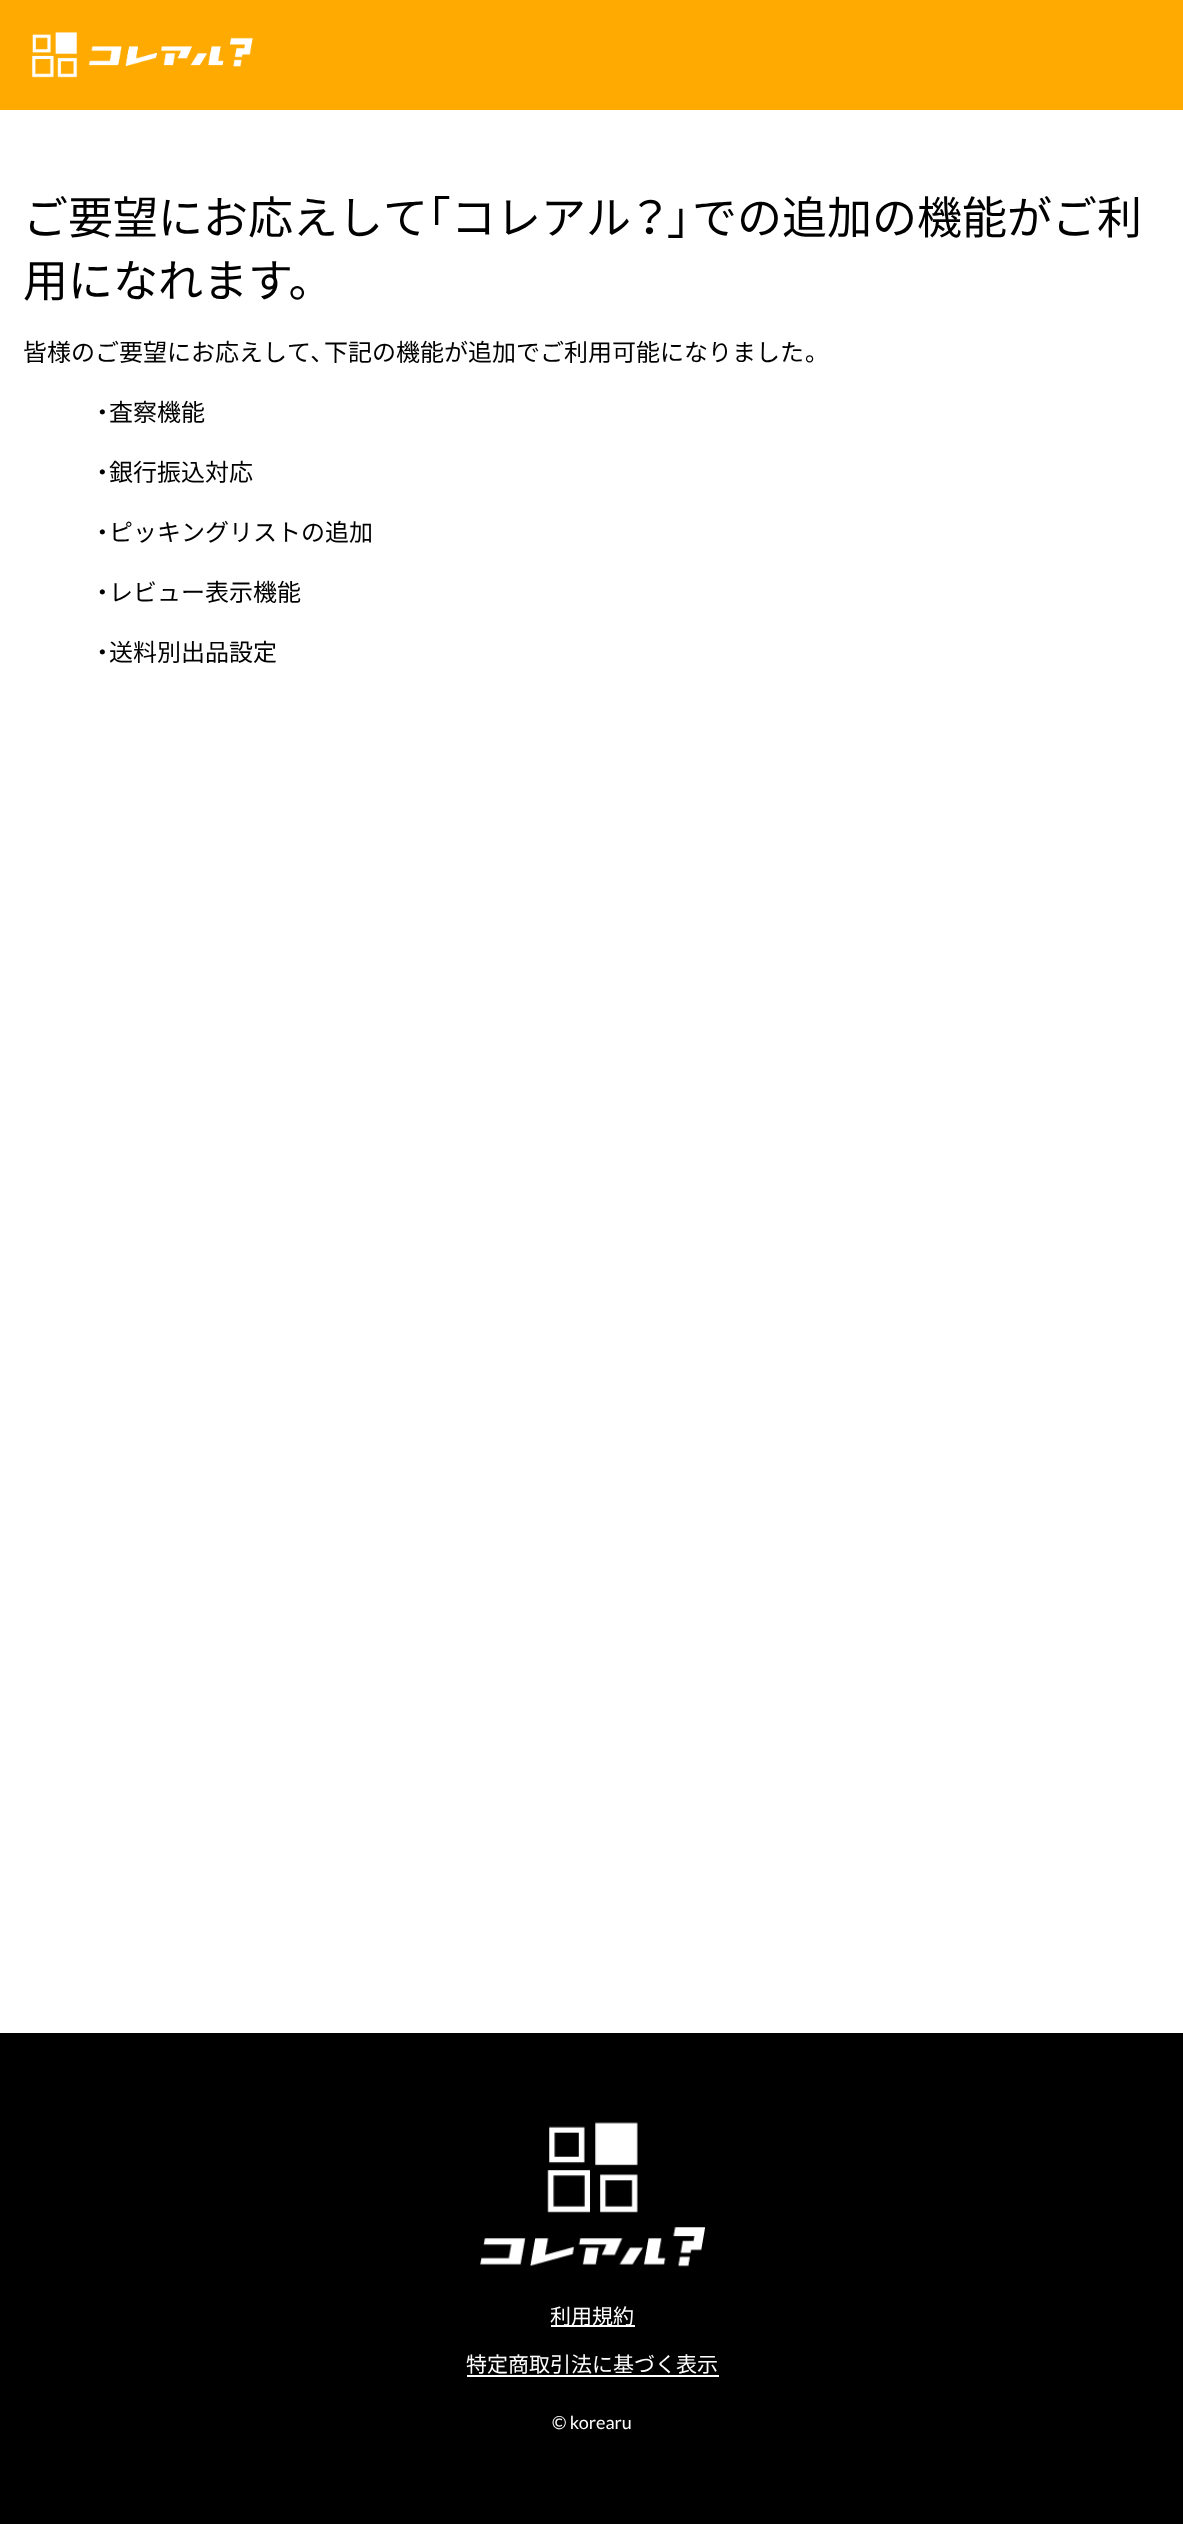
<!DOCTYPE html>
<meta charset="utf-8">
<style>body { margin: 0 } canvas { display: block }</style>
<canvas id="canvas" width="1183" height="2524"></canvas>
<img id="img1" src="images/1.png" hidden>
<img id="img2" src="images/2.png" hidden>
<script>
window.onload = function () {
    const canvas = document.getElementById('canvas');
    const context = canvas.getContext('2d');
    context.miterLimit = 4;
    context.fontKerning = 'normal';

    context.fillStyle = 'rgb(255, 255, 255)';
    context.fillRect(0, 0, 1183, 2524);
    context.fillStyle = 'rgb(255, 170, 0)';
    context.fillRect(0, 0, 1183, 110);
    context.drawImage(document.getElementById('img1'), 31, 32, 222, 46);
    context.fillStyle = 'rgb(0, 0, 0)';
    context.fillRect(0, 2033, 1183, 491);
    context.drawImage(document.getElementById('img2'), 480, 2122, 225, 145);
    context.fillStyle = 'rgb(255, 255, 255)';
    context.fillRect(551, 2325, 84, 2);
    context.fillRect(467, 2375, 252, 2);
    context.font = '45px Noto Sans JP';
    context.fillStyle = 'rgb(0, 0, 0)';
    context.fillText('ご要望にお応えして', 23, 234);
    context.font = '45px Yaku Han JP';
    context.fillText('「', 426, 234);
    context.font = '45px Noto Sans JP';
    context.fillText('コレアル', 451, 234);
    context.font = '45px Yaku Han JP';
    context.fillText('？」', 630, 234);
    context.font = '45px Noto Sans JP';
    context.fillText('での追加の機能がご利', 692, 234);
    context.fillText('用になれます。', 23, 297);
    context.font = '24px Noto Sans JP';
    context.fillText('皆様のご要望にお応えして', 23, 361);
    context.font = '24px Yaku Han JP';
    context.fillText('、', 310, 361);
    context.font = '24px Noto Sans JP';
    context.fillText('下記の機能が追加でご利用可能になりました', 324, 361);
    context.font = '24px Yaku Han JP';
    context.fillText('。', 804, 361);
    context.fillText('・', 95, 421);
    context.font = '24px Noto Sans JP';
    context.fillText('査察機能', 109, 421);
    context.font = '24px Yaku Han JP';
    context.fillText('・', 95, 481);
    context.font = '24px Noto Sans JP';
    context.fillText('銀行振込対応', 109, 481);
    context.font = '24px Yaku Han JP';
    context.fillText('・', 95, 541);
    context.font = '24px Noto Sans JP';
    context.fillText('ピッキングリストの追加', 109, 541);
    context.font = '24px Yaku Han JP';
    context.fillText('・', 95, 601);
    context.font = '24px Noto Sans JP';
    context.fillText('レビュー表示機能', 109, 601);
    context.font = '24px Yaku Han JP';
    context.fillText('・', 95, 661);
    context.font = '24px Noto Sans JP';
    context.fillText('送料別出品設定', 109, 661);
    context.font = '21px Noto Sans JP';
    context.fillStyle = 'rgb(255, 255, 255)';
    context.fillText('利用規約', 550, 2324);
    context.fillText('特定商取引法に基づく表示', 466, 2372);
    context.font = '18px Lato';
    context.fillText('© korearu', 552, 2429);
};
</script>
